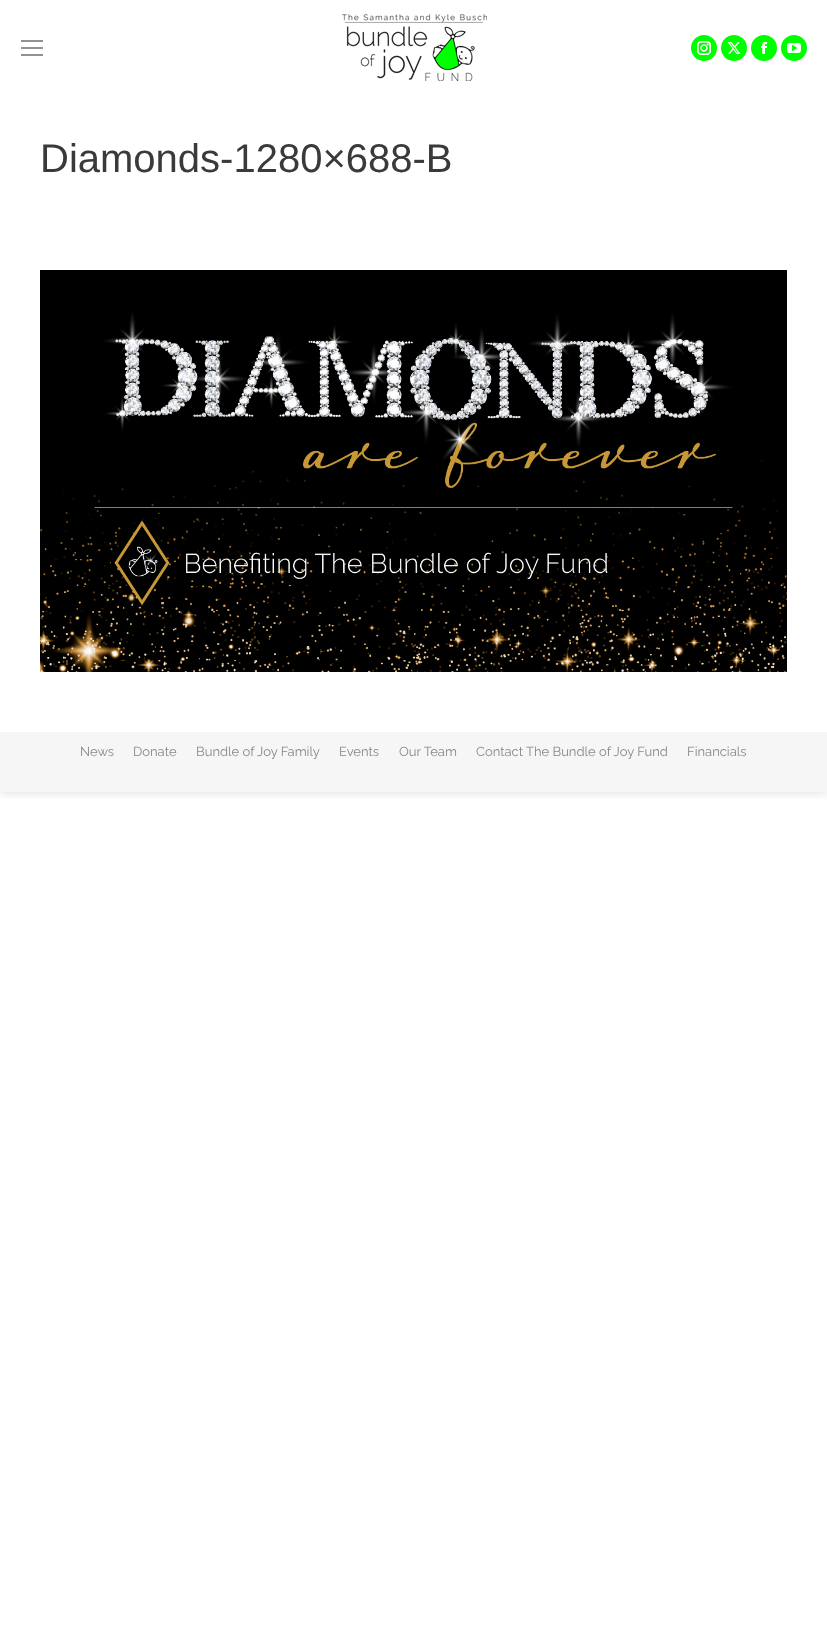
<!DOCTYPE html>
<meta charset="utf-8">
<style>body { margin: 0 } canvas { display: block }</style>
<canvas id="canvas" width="827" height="1638"></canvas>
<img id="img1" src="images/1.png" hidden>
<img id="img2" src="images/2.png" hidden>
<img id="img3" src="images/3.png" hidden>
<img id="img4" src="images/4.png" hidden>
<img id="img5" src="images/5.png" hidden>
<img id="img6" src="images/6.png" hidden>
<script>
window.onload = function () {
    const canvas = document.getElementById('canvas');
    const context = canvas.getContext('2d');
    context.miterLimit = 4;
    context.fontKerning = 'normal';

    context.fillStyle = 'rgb(255, 255, 255)';
    context.fillRect(0, 0, 827, 1638);
    context.save();
    context.beginPath();
    context.rect(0, 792, 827, 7);
    context.clip();
    context.fillStyle = 'rgba(0, 0, 0, 0.15)';
    context.filter = 'blur(6px)';
    context.beginPath();
    context.rect(0, 0, 827, 792);
    context.fill();
    context.filter = 'none';
    context.restore();
    context.fillStyle = 'rgb(147, 147, 147)';
    context.fillRect(21, 40, 22, 2);
    context.fillRect(21, 47, 22, 2);
    context.fillRect(21, 54, 22, 2);
    context.drawImage(document.getElementById('img1'), 342, 14, 145, 67);
    context.fillStyle = 'rgb(0, 255, 0)';
    context.beginPath();
    context.arc(704, 48, 13, 0, 2 * Math.PI);
    context.fill();
    context.drawImage(document.getElementById('img2'), 697, 41, 14, 14);
    context.beginPath();
    context.arc(734, 48, 13, 0, 2 * Math.PI);
    context.fill();
    context.drawImage(document.getElementById('img3'), 727, 42, 14, 12);
    context.beginPath();
    context.arc(764, 48, 13, 0, 2 * Math.PI);
    context.fill();
    context.drawImage(document.getElementById('img4'), 761, 42, 6, 12);
    context.beginPath();
    context.arc(794, 48, 13, 0, 2 * Math.PI);
    context.fill();
    context.drawImage(document.getElementById('img5'), 787, 43, 14, 10);
    context.drawImage(document.getElementById('img6'), 40, 270, 747, 402);
    context.fillStyle = 'rgb(246, 246, 246)';
    context.fillRect(0, 732, 827, 60);
    context.font = '40px Liberation Sans';
    context.fillStyle = 'rgb(58, 58, 58)';
    context.fillText('Diamonds-1280×688-B', 40, 172);
    context.font = '13px Raleway';
    context.fillStyle = 'rgb(136, 136, 136)';
    context.fillText('News', 80, 756);
    context.fillText('Donate', 133, 756);
    context.fillText('Bundle of Joy Family', 196, 756);
    context.fillText('Events', 339, 756);
    context.fillText('Our Team', 399, 756);
    context.fillText('Contact The Bundle of Joy Fund', 476, 756);
    context.fillText('Financials', 687, 756);
};
</script>
